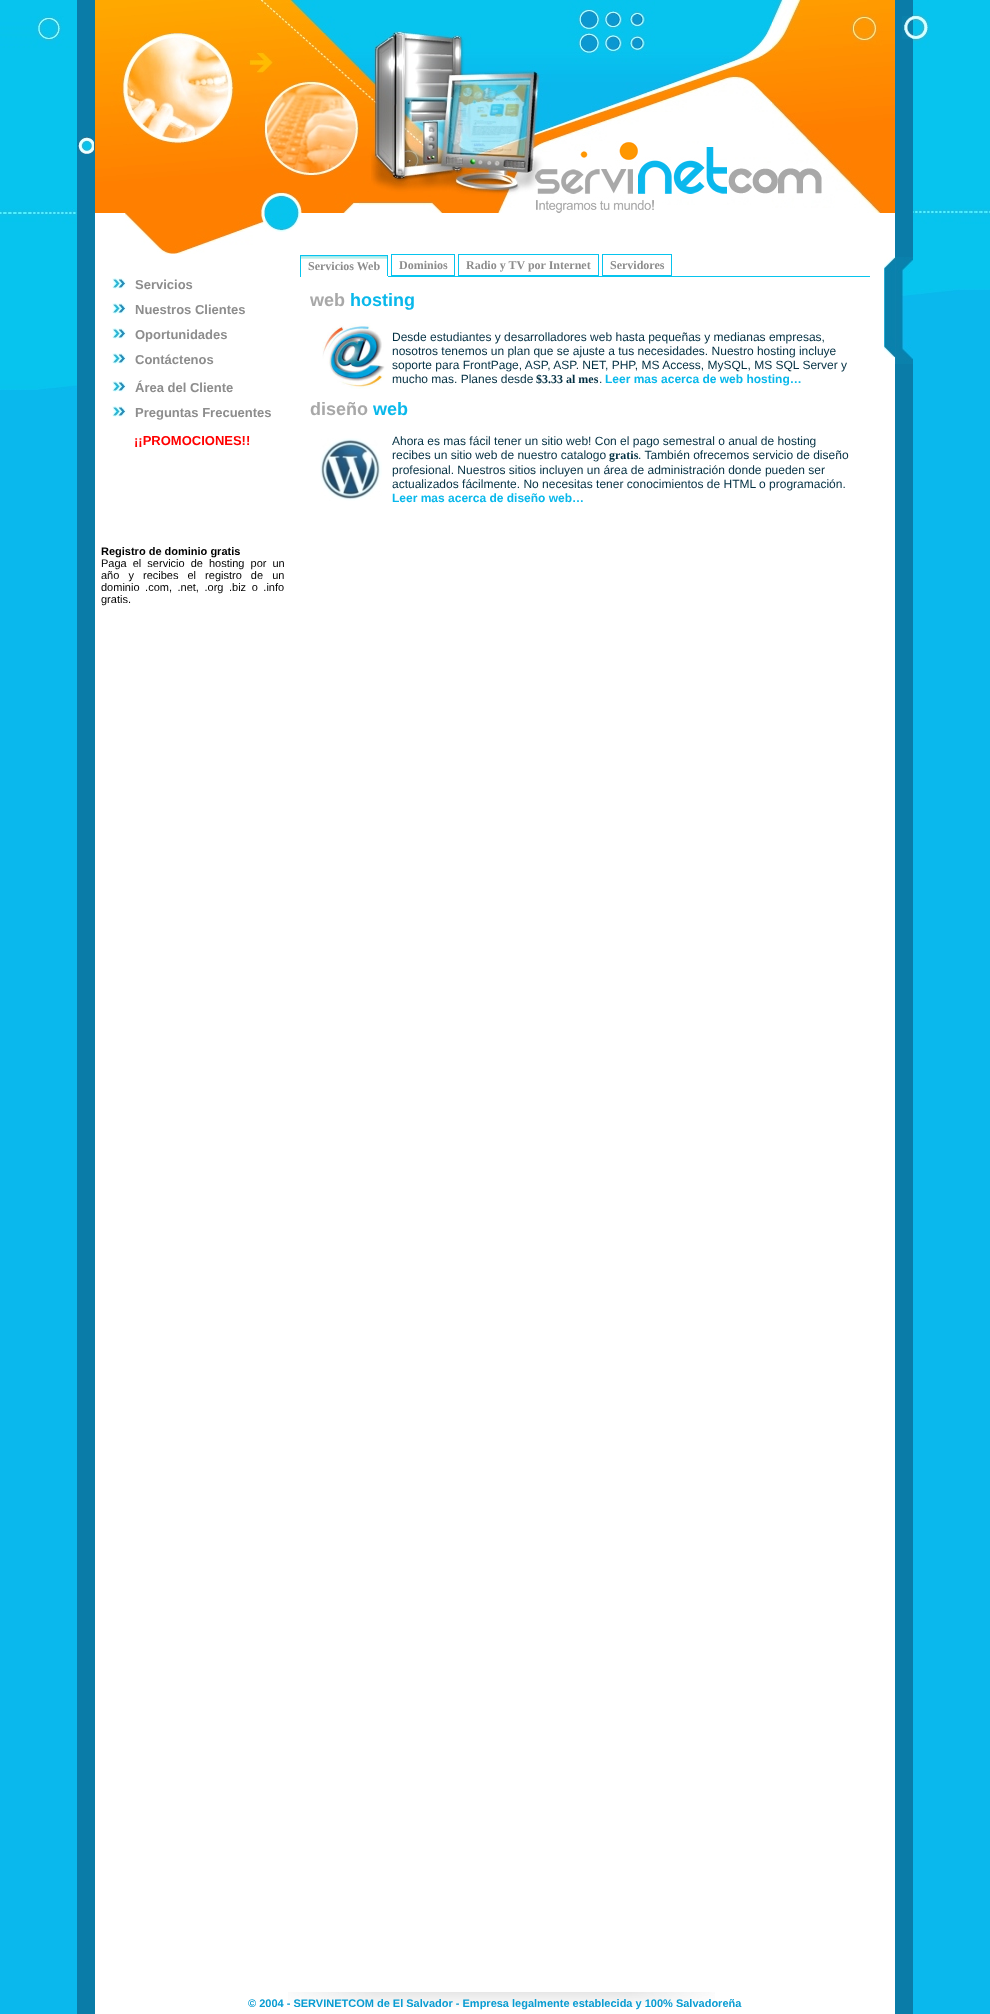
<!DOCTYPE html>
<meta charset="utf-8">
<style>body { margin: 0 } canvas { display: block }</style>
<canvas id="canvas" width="990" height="2014"></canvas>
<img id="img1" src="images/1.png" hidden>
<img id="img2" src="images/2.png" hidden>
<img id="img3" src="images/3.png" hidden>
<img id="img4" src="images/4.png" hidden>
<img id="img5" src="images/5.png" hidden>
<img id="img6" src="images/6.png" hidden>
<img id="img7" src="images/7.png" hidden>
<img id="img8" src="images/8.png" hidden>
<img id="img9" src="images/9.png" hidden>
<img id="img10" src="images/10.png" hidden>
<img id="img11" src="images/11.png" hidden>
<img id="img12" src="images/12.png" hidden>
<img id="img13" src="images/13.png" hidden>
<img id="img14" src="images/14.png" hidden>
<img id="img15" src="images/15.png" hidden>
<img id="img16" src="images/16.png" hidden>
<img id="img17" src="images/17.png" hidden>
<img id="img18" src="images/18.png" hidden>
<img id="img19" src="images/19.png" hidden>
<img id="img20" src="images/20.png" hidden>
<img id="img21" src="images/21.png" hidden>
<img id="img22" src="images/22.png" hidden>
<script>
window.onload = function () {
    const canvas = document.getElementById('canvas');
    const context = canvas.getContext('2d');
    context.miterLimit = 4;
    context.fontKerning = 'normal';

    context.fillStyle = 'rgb(10, 184, 237)';
    context.fillRect(0, 0, 990, 2014);
    context.drawImage(document.getElementById('img1'), 77, 0, 836, 2014);
    context.drawImage(document.getElementById('img2'), 0, 0, 30, 390);
    context.drawImage(document.getElementById('img3'), 30, 0, 47, 390);
    context.drawImage(document.getElementById('img4'), 913, 0, 47, 295);
    context.drawImage(document.getElementById('img5'), 960, 0, 30, 290);
    context.drawImage(document.getElementById('img6'), 77, 137, 18, 17);
    context.drawImage(document.getElementById('img7'), 902, 16, 11, 23);
    context.drawImage(document.getElementById('img8'), 895, 257, 18, 107);
    context.drawImage(document.getElementById('img9'), 95, 0, 264, 33);
    context.drawImage(document.getElementById('img10'), 95, 33, 264, 180);
    context.drawImage(document.getElementById('img11'), 359, 0, 232, 213);
    context.drawImage(document.getElementById('img12'), 591, 0, 180, 125);
    context.drawImage(document.getElementById('img13'), 591, 125, 180, 85);
    context.drawImage(document.getElementById('img14'), 771, 0, 124, 213);
    context.drawImage(document.getElementById('img15'), 125, 213, 140, 41);
    context.drawImage(document.getElementById('img16'), 265, 213, 35, 19);
    context.drawImage(document.getElementById('img17'), 112, 278, 15, 11);
    context.drawImage(document.getElementById('img17'), 112, 303, 15, 11);
    context.drawImage(document.getElementById('img17'), 112, 328, 15, 11);
    context.drawImage(document.getElementById('img17'), 112, 353, 15, 11);
    context.drawImage(document.getElementById('img17'), 112, 381, 15, 11);
    context.drawImage(document.getElementById('img17'), 112, 406, 15, 11);
    context.drawImage(document.getElementById('img18'), 301, 256, 86, 20);
    context.strokeStyle = 'rgb(7, 196, 238)';
    context.strokeRect(391.5, 254.5, 63, 21);
    context.strokeRect(458.5, 254.5, 140, 21);
    context.strokeRect(602.5, 254.5, 69, 21);
    context.fillStyle = 'rgb(7, 196, 238)';
    context.fillRect(300, 255, 88, 1);
    context.fillRect(387, 255, 1, 22);
    context.fillStyle = 'rgb(255, 255, 255)';
    context.fillRect(387, 276, 1, 1);
    context.fillStyle = 'rgb(7, 196, 238)';
    context.fillRect(300, 255, 1, 22);
    context.fillRect(388, 276, 482, 1);
    context.drawImage(document.getElementById('img19'), 322, 323, 63, 66);
    context.drawImage(document.getElementById('img20'), 320, 438, 62, 63);
    context.drawImage(document.getElementById('img21'), 884, 257, 11, 101);
    context.drawImage(document.getElementById('img22'), 288, 1992, 427, 15);
    context.font = 'bold 13px Liberation Sans';
    context.fillStyle = 'rgb(141, 141, 141)';
    context.fillText('Servicios', 135, 289);
    context.fillText('Nuestros Clientes', 135, 314);
    context.fillText('Oportunidades', 135, 339);
    context.fillText('Contáctenos', 135, 364);
    context.fillText('Área del Cliente', 135, 392);
    context.fillText('Preguntas Frecuentes', 135, 417);
    context.fillStyle = 'rgb(255, 0, 0)';
    context.fillText('¡¡PROMOCIONES!!', 134, 445);
    context.font = 'bold 11px Liberation Sans';
    context.fillStyle = 'rgb(0, 0, 0)';
    context.fillText('Registro de dominio gratis', 101, 555);
    context.wordSpacing = '3px';
    context.font = '11px Liberation Sans';
    context.fillText('Paga el servicio de hosting por un', 101, 567);
    context.wordSpacing = '6px';
    context.fillText('año y recibes el registro de un', 101, 579);
    context.wordSpacing = '2.5px';
    context.fillText('dominio .com, .net, .org .biz o .info', 101, 591);
    context.wordSpacing = '0px';
    context.fillText('gratis.', 101, 603);
    context.font = 'bold 12px Liberation Serif';
    context.fillStyle = 'rgb(141, 141, 141)';
    context.fillText('Dominios', 399, 269);
    context.fillText('Radio y TV por Internet', 466, 269);
    context.fillText('Servidores', 610, 269);
    context.fillText('Servicios Web', 308, 270);
    context.font = 'bold 18px Liberation Sans';
    context.fillStyle = 'rgb(168, 168, 168)';
    context.fillText('web', 310, 306);
    context.fillStyle = 'rgb(9, 184, 235)';
    context.fillText('hosting', 350, 306);
    context.font = '12px Liberation Sans';
    context.fillStyle = 'rgb(3, 48, 67)';
    context.fillText('Desde estudiantes y desarrolladores web hasta pequeñas y medianas empresas,', 392, 341);
    context.fillText('nosotros tenemos un plan que se ajuste a tus necesidades. Nuestro hosting incluye', 392, 355);
    context.fillText('soporte para FrontPage, ASP, ASP. NET, PHP, MS Access, MySQL, MS SQL Server y', 392, 369);
    context.fillText('mucho mas. Planes desde', 392, 383);
    context.font = 'bold 12px Liberation Serif';
    context.fillText('$3.33 al mes', 536, 383);
    context.font = '12px Liberation Sans';
    context.fillText('.', 599, 383);
    context.font = 'bold 12px Liberation Sans';
    context.fillStyle = 'rgb(9, 184, 235)';
    context.fillText('Leer mas acerca de web hosting…', 605, 383);
    context.font = 'bold 18px Liberation Sans';
    context.fillStyle = 'rgb(168, 168, 168)';
    context.fillText('diseño', 310, 415);
    context.fillStyle = 'rgb(9, 184, 235)';
    context.fillText('web', 373, 415);
    context.font = '12px Liberation Sans';
    context.fillStyle = 'rgb(3, 48, 67)';
    context.fillText('Ahora es mas fácil tener un sitio web! Con el pago semestral o anual de hosting', 392, 445);
    context.fillText('recibes un sitio web de nuestro catalogo', 392, 459);
    context.font = 'bold 12px Liberation Serif';
    context.fillText('gratis', 609, 459);
    context.font = '12px Liberation Sans';
    context.fillText('. También ofrecemos servicio de diseño', 638, 459);
    context.fillText('profesional. Nuestros sitios incluyen un área de administración donde pueden ser', 392, 474);
    context.fillText('actualizados fácilmente. No necesitas tener conocimientos de HTML o programación.', 392, 488);
    context.font = 'bold 12px Liberation Sans';
    context.fillStyle = 'rgb(9, 184, 235)';
    context.fillText('Leer mas acerca de diseño web…', 392, 502);
    context.font = 'bold 11px Liberation Sans';
    context.fillStyle = 'rgb(9, 156, 210)';
    context.fillText('© 2004 - SERVINETCOM de El Salvador - Empresa legalmente establecida y 100% Salvadoreña', 248, 2007);
};
</script>
